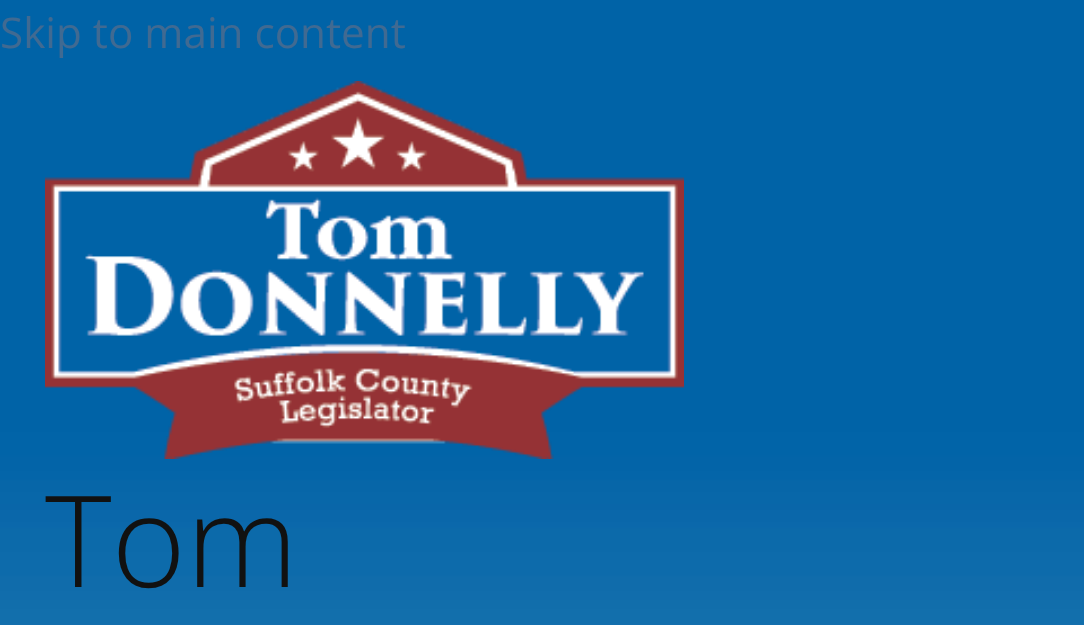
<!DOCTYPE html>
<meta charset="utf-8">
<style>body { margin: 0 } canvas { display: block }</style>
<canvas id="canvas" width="1084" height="625"></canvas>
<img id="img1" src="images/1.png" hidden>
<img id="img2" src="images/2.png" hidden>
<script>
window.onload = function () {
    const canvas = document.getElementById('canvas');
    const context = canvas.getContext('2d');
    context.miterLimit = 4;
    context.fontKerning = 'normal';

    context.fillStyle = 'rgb(255, 255, 255)';
    context.fillRect(0, 0, 1084, 625);
    context.drawImage(document.getElementById('img1'), 0, 0, 1084, 625);
    context.drawImage(document.getElementById('img2'), 45, 81, 639, 378);
    context.font = '42.25px Open Sans';
    context.fillStyle = 'rgb(64, 106, 146)';
    context.fillText('Skip to main content', 0, 48);
    context.font = '300 127px Open Sans';
    context.fillStyle = 'rgb(17, 17, 17)';
    context.fillText('Tom', 45, 587);
};
</script>
